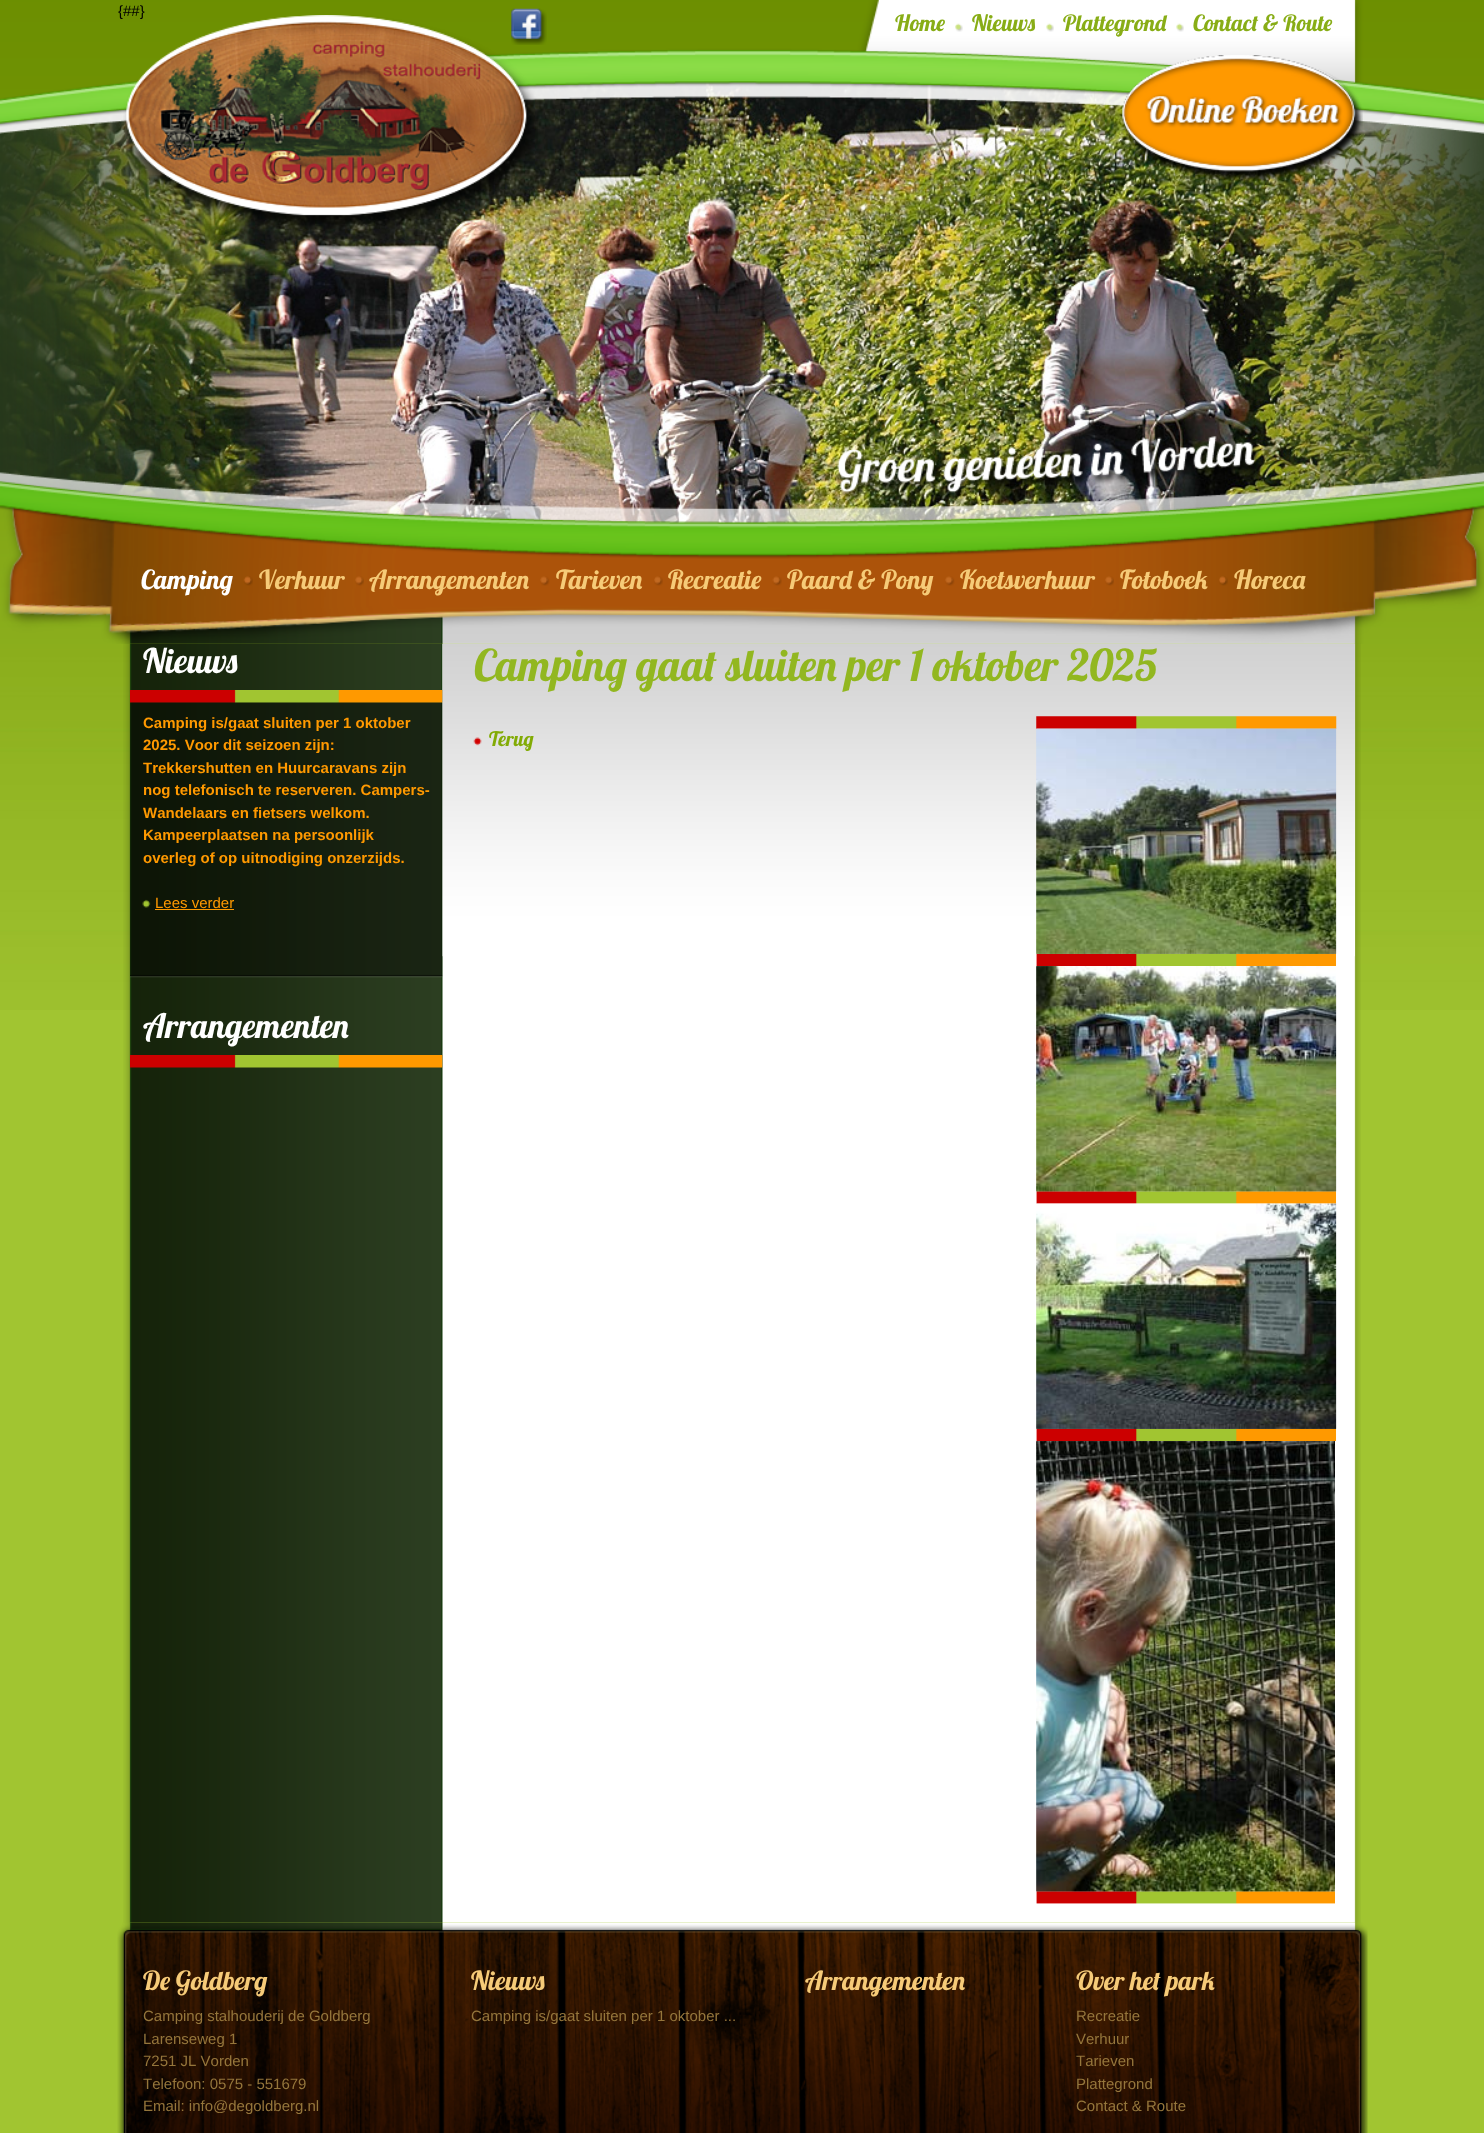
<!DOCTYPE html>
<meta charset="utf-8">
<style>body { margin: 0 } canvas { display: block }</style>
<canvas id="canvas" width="1484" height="2133"></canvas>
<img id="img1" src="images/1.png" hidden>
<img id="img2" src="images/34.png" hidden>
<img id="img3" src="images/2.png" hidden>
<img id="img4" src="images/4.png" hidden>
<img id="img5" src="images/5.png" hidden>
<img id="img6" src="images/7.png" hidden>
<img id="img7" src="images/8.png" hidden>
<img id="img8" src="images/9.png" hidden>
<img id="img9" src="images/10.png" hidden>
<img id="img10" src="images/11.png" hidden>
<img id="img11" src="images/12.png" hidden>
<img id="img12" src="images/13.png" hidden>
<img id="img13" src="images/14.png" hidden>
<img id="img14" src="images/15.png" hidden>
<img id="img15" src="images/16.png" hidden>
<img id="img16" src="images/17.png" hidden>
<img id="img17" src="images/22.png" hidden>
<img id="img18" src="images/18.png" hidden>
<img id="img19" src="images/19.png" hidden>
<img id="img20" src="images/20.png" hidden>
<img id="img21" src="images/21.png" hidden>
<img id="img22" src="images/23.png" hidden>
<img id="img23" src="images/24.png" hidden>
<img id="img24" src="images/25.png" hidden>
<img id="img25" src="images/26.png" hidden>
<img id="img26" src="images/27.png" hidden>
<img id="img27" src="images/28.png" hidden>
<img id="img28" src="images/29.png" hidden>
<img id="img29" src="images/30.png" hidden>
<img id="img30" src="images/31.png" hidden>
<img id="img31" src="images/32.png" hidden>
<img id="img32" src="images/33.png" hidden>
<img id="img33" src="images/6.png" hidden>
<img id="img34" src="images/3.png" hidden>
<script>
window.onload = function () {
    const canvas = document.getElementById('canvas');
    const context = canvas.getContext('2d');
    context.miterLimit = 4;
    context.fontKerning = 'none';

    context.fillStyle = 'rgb(161, 197, 49)';
    context.fillRect(0, 0, 1484, 2133);
    context.drawImage(document.getElementById('img1'), 0, 643, 1484, 367);
    context.drawImage(document.getElementById('img2'), 0, 82, 1484, 442);
    context.drawImage(document.getElementById('img3'), 0, 0, 1484, 644);
    context.drawImage(document.getElementById('img4'), 955, 23, 8, 9);
    context.drawImage(document.getElementById('img5'), 1046, 23, 8, 9);
    context.drawImage(document.getElementById('img5'), 1176, 23, 8, 9);
    context.drawImage(document.getElementById('img6'), 1121, 55, 242, 126);
    context.drawImage(document.getElementById('img7'), 1121, 55, 242, 126);
    context.drawImage(document.getElementById('img8'), 837, 436, 424, 65);
    context.drawImage(document.getElementById('img9'), 243, 576, 10, 10);
    context.drawImage(document.getElementById('img10'), 355, 576, 9, 10);
    context.drawImage(document.getElementById('img11'), 540, 576, 10, 10);
    context.drawImage(document.getElementById('img12'), 654, 576, 9, 10);
    context.drawImage(document.getElementById('img13'), 772, 576, 10, 10);
    context.drawImage(document.getElementById('img11'), 945, 576, 10, 10);
    context.drawImage(document.getElementById('img14'), 1105, 576, 9, 10);
    context.drawImage(document.getElementById('img15'), 1219, 576, 9, 10);
    context.drawImage(document.getElementById('img16'), 123, 643, 1238, 1280);
    context.drawImage(document.getElementById('img17'), 442, 644, 913, 313);
    context.drawImage(document.getElementById('img18'), 130, 690, 313, 13);
    context.drawImage(document.getElementById('img19'), 130, 702, 313, 276);
    context.drawImage(document.getElementById('img20'), 142, 899, 9, 9);
    context.fillStyle = 'rgb(255, 153, 0)';
    context.fillRect(155, 909, 79, 1);
    context.drawImage(document.getElementById('img21'), 130, 1055, 313, 13);
    context.drawImage(document.getElementById('img22'), 473, 737, 9, 9);
    context.drawImage(document.getElementById('img23'), 1036, 716, 301, 13);
    context.drawImage(document.getElementById('img24'), 1036, 728, 301, 239);
    context.drawImage(document.getElementById('img25'), 1036, 728, 301, 226);
    context.drawImage(document.getElementById('img26'), 1036, 966, 301, 238);
    context.drawImage(document.getElementById('img27'), 1036, 966, 301, 226);
    context.drawImage(document.getElementById('img28'), 1036, 1203, 301, 239);
    context.drawImage(document.getElementById('img29'), 1036, 1203, 301, 226);
    context.drawImage(document.getElementById('img30'), 1036, 1441, 299, 463);
    context.drawImage(document.getElementById('img31'), 1036, 1441, 299, 451);
    context.drawImage(document.getElementById('img32'), 117, 1922, 1251, 211);
    context.font = '15px Liberation Sans';
    context.fillStyle = 'rgb(0, 0, 0)';
    context.fillText('{##}', 118, 16);
    context.font = '22.5px Lobster';
    context.fillStyle = 'rgb(136, 173, 22)';
    context.fillText('Home', 895, 31);
    context.fillText('Nieuws', 972, 31);
    context.fillText('Plattegrond', 1063, 31);
    context.fillText('Contact & Route', 1193, 31);
    context.drawImage(document.getElementById('img33'), 123, 15, 415, 218);
    context.drawImage(document.getElementById('img34'), 511, 8, 36, 37);
    context.font = '26.25px Lobster';
    context.fillStyle = 'rgb(255, 255, 255)';
    context.fillText('Camping', 141, 589);
    context.fillStyle = 'rgb(246, 203, 120)';
    context.fillText('Verhuur', 259, 589);
    context.fillText('Arrangementen', 369, 589);
    context.fillText('Tarieven', 556, 589);
    context.fillText('Recreatie', 668, 589);
    context.fillText('Paard & Pony', 787, 589);
    context.fillText('Koetsverhuur', 960, 589);
    context.fillText('Fotoboek', 1120, 589);
    context.fillText('Horeca', 1234, 589);
    context.font = '33.75px Lobster';
    context.fillStyle = 'rgb(255, 255, 255)';
    context.fillText('Nieuws', 143, 673);
    context.font = 'bold 15px Liberation Sans';
    context.fillStyle = 'rgb(255, 153, 0)';
    context.fillText('Camping is/gaat sluiten per 1 oktober', 143, 728);
    context.fillText('2025. Voor dit seizoen zijn:', 143, 750);
    context.fillText('Trekkershutten en Huurcaravans zijn', 143, 773);
    context.fillText('nog telefonisch te reserveren. Campers-', 143, 795);
    context.fillText('Wandelaars en fietsers welkom.', 143, 818);
    context.fillText('Kampeerplaatsen na persoonlijk', 143, 840);
    context.fillText('overleg of op uitnodiging onzerzijds.', 143, 863);
    context.font = '15px Liberation Sans';
    context.fillText('Lees verder', 155, 908);
    context.font = '33.75px Lobster';
    context.fillStyle = 'rgb(255, 255, 255)';
    context.fillText('Arrangementen', 143, 1038);
    context.font = '43.75px Lobster';
    context.fillStyle = 'rgb(146, 183, 32)';
    context.fillText('Camping gaat sluiten per 1 oktober 2025', 474, 681);
    context.font = '20px Lobster';
    context.fillStyle = 'rgb(130, 171, 5)';
    context.fillText('Terug', 489, 746);
    context.save();
    context.beginPath();
    context.rect(143, 1966, 307, 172);
    context.clip();
    context.font = '26.25px Lobster';
    context.fillStyle = 'rgb(246, 203, 120)';
    context.fillText('De Goldberg', 143, 1990);
    context.restore();
    context.font = '15px Liberation Sans';
    context.fillStyle = 'rgb(149, 118, 59)';
    context.fillText('Camping stalhouderij de Goldberg', 143, 2021);
    context.fillText('Larenseweg 1', 143, 2044);
    context.fillText('7251 JL Vorden', 143, 2066);
    context.fillText('Telefoon: 0575 - 551679', 143, 2089);
    context.fillText('Email: info@degoldberg.nl', 143, 2111);
    context.font = '26.25px Lobster';
    context.fillStyle = 'rgb(246, 203, 120)';
    context.fillText('Nieuws', 471, 1990);
    context.font = '15px Liberation Sans';
    context.fillStyle = 'rgb(149, 118, 59)';
    context.fillText('Camping is/gaat sluiten per 1 oktober ...', 471, 2021);
    context.font = '26.25px Lobster';
    context.fillStyle = 'rgb(246, 203, 120)';
    context.fillText('Arrangementen', 805, 1990);
    context.fillText('Over het park', 1076, 1990);
    context.font = '15px Liberation Sans';
    context.fillStyle = 'rgb(149, 118, 59)';
    context.fillText('Recreatie', 1076, 2021);
    context.fillText('Verhuur', 1076, 2044);
    context.fillText('Tarieven', 1076, 2066);
    context.fillText('Plattegrond', 1076, 2089);
    context.fillText('Contact & Route', 1076, 2111);
};
</script>
